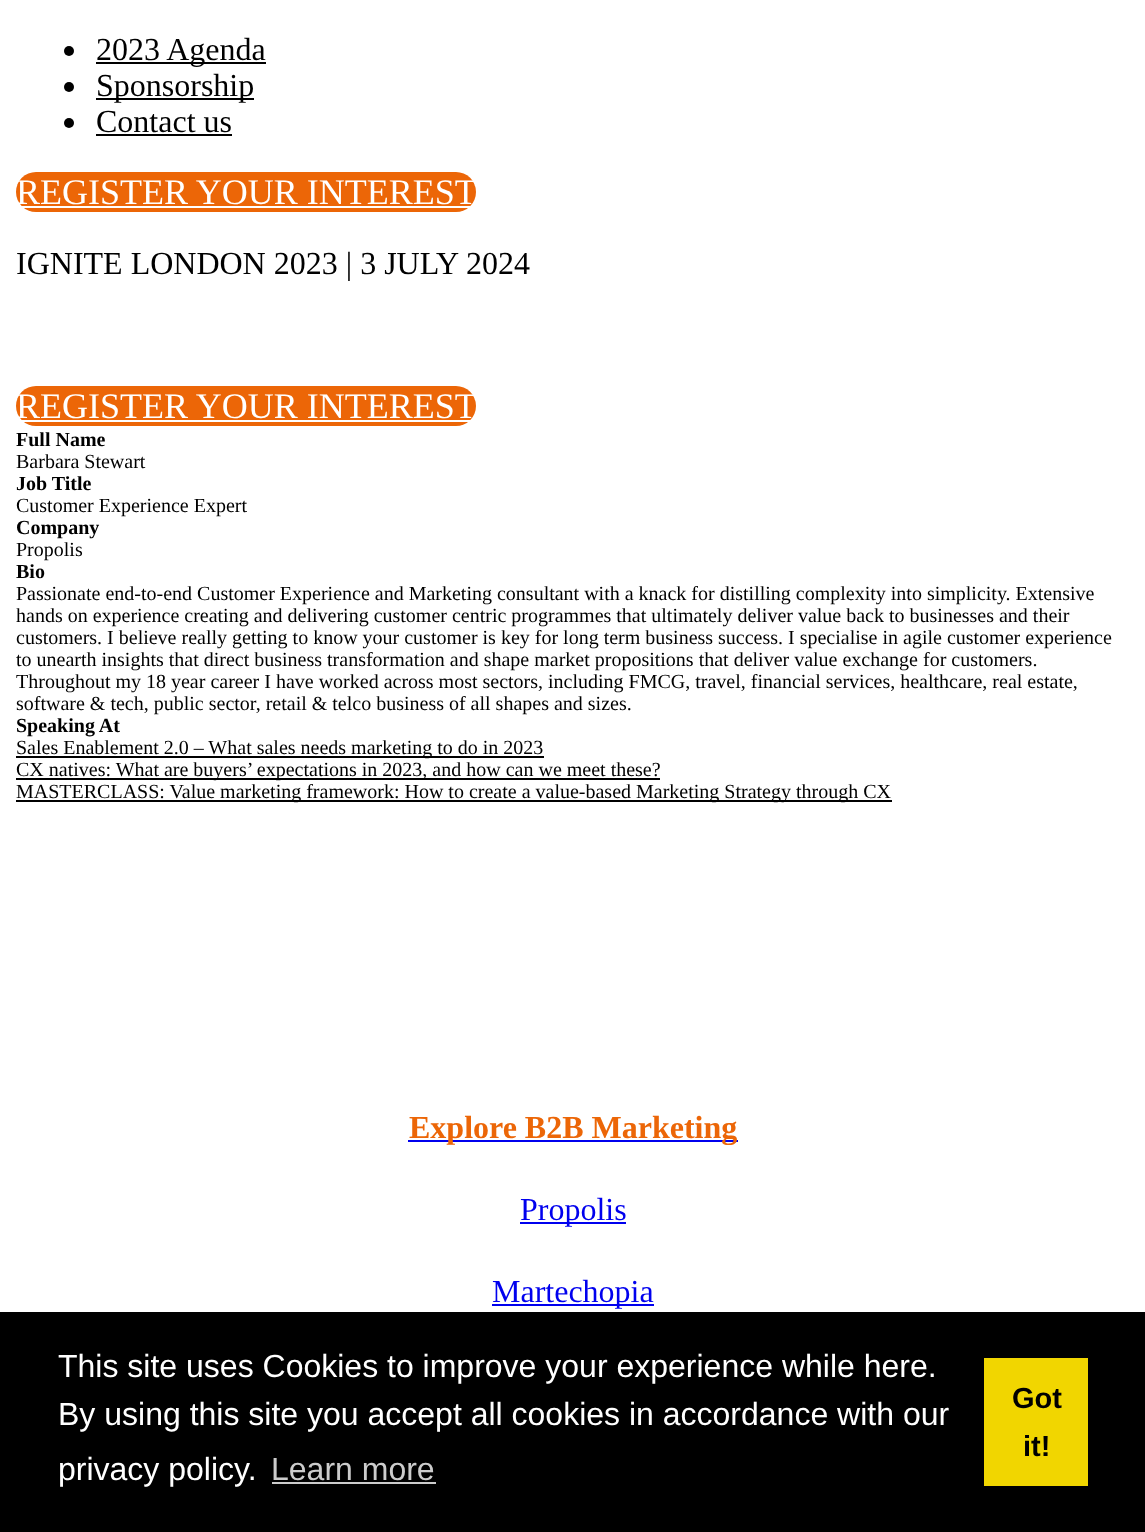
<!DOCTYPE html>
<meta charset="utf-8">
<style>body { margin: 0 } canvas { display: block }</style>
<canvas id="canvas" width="1145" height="1532"></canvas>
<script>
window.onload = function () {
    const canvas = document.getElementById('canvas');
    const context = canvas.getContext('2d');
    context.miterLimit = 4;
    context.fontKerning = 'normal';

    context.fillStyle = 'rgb(255, 255, 255)';
    context.fillRect(0, 0, 1145, 1532);
    context.fillStyle = 'rgb(0, 0, 0)';
    context.beginPath();
    context.arc(69, 51, 5, 0, 2 * Math.PI);
    context.fill();
    context.fillRect(96, 62, 170, 2);
    context.beginPath();
    context.arc(69, 87, 5, 0, 2 * Math.PI);
    context.fill();
    context.fillRect(96, 98, 158, 2);
    context.beginPath();
    context.arc(69, 123, 5, 0, 2 * Math.PI);
    context.fill();
    context.fillRect(96, 134, 136, 2);
    context.fillStyle = 'rgb(236, 102, 7)';
    context.beginPath();
    context.roundRect(16, 172, 460, 40, 20);
    context.fill();
    context.fillStyle = 'rgb(255, 255, 255)';
    context.fillRect(16, 206, 460, 2);
    context.fillStyle = 'rgb(236, 102, 7)';
    context.beginPath();
    context.roundRect(16, 386, 460, 40, 20);
    context.fill();
    context.fillStyle = 'rgb(255, 255, 255)';
    context.fillRect(16, 420, 460, 2);
    context.fillStyle = 'rgb(0, 0, 0)';
    context.fillRect(16, 756, 528, 2);
    context.fillRect(16, 778, 644, 2);
    context.fillRect(16, 800, 876, 2);
    context.fillStyle = 'rgb(0, 0, 238)';
    context.fillRect(408, 1140, 330, 2);
    context.fillRect(520, 1222, 106, 2);
    context.fillRect(492, 1304, 162, 2);
    context.fillStyle = 'rgb(0, 0, 0)';
    context.fillRect(0, 1312, 1145, 220);
    context.fillStyle = 'rgb(204, 204, 204)';
    context.fillRect(272, 1482, 164, 2);
    context.fillStyle = 'rgb(241, 214, 0)';
    context.fillRect(984, 1358, 104, 128);
    context.font = '32px Liberation Serif';
    context.fillStyle = 'rgb(0, 0, 0)';
    context.fillText('2023 Agenda', 96, 60);
    context.fillText('Sponsorship', 96, 96);
    context.fillText('Contact us', 96, 132);
    context.font = '36px Liberation Serif';
    context.fillStyle = 'rgb(255, 255, 255)';
    context.fillText('REGISTER YOUR INTEREST', 16, 204);
    context.font = '32px Liberation Serif';
    context.fillStyle = 'rgb(0, 0, 0)';
    context.fillText('IGNITE LONDON 2023 | 3 JULY 2024', 16, 274);
    context.font = '36px Liberation Serif';
    context.fillStyle = 'rgb(255, 255, 255)';
    context.fillText('REGISTER YOUR INTEREST', 16, 418);
    context.font = 'bold 20px Liberation Serif';
    context.fillStyle = 'rgb(0, 0, 0)';
    context.fillText('Full Name', 16, 446);
    context.font = '20px Liberation Serif';
    context.fillText('Barbara Stewart', 16, 468);
    context.font = 'bold 20px Liberation Serif';
    context.fillText('Job Title', 16, 490);
    context.font = '20px Liberation Serif';
    context.fillText('Customer Experience Expert', 16, 512);
    context.font = 'bold 20px Liberation Serif';
    context.fillText('Company', 16, 534);
    context.font = '20px Liberation Serif';
    context.fillText('Propolis', 16, 556);
    context.font = 'bold 20px Liberation Serif';
    context.fillText('Bio', 16, 578);
    context.font = '20px Liberation Serif';
    context.fillText('Passionate end-to-end Customer Experience and Marketing consultant with a knack for distilling complexity into simplicity. Extensive', 16, 600);
    context.fillText('hands on experience creating and delivering customer centric programmes that ultimately deliver value back to businesses and their', 16, 622);
    context.fillText('customers. I believe really getting to know your customer is key for long term business success. I specialise in agile customer experience', 16, 644);
    context.fillText('to unearth insights that direct business transformation and shape market propositions that deliver value exchange for customers.', 16, 666);
    context.fillText('Throughout my 18 year career I have worked across most sectors, including FMCG, travel, financial services, healthcare, real estate,', 16, 688);
    context.fillText('software & tech, public sector, retail & telco business of all shapes and sizes.', 16, 710);
    context.font = 'bold 20px Liberation Serif';
    context.fillText('Speaking At', 16, 732);
    context.font = '20px Liberation Serif';
    context.fillText('Sales Enablement 2.0 – What sales needs marketing to do in 2023', 16, 754);
    context.fillText('CX natives: What are buyers’ expectations in 2023, and how can we meet these?', 16, 776);
    context.fillText('MASTERCLASS: Value marketing framework: How to create a value-based Marketing Strategy through CX', 16, 798);
    context.font = 'bold 32px Liberation Serif';
    context.fillStyle = 'rgb(236, 102, 7)';
    context.fillText('Explore B2B Marketing', 409, 1138);
    context.font = '32px Liberation Serif';
    context.fillStyle = 'rgb(0, 0, 238)';
    context.fillText('Propolis', 520, 1220);
    context.fillText('Martechopia', 492, 1302);
    context.font = '32px Liberation Sans';
    context.fillStyle = 'rgb(255, 255, 255)';
    context.fillText('This site uses Cookies to improve your experience while here.', 58, 1377);
    context.fillText('By using this site you accept all cookies in accordance with our', 58, 1425);
    context.fillText('privacy policy.', 58, 1480);
    context.fillStyle = 'rgb(204, 204, 204)';
    context.fillText('Learn more', 271, 1480);
    context.font = 'bold 29px Liberation Sans';
    context.fillStyle = 'rgb(0, 0, 0)';
    context.fillText('Got', 1012, 1408);
    context.fillText('it!', 1023, 1456);
};
</script>
